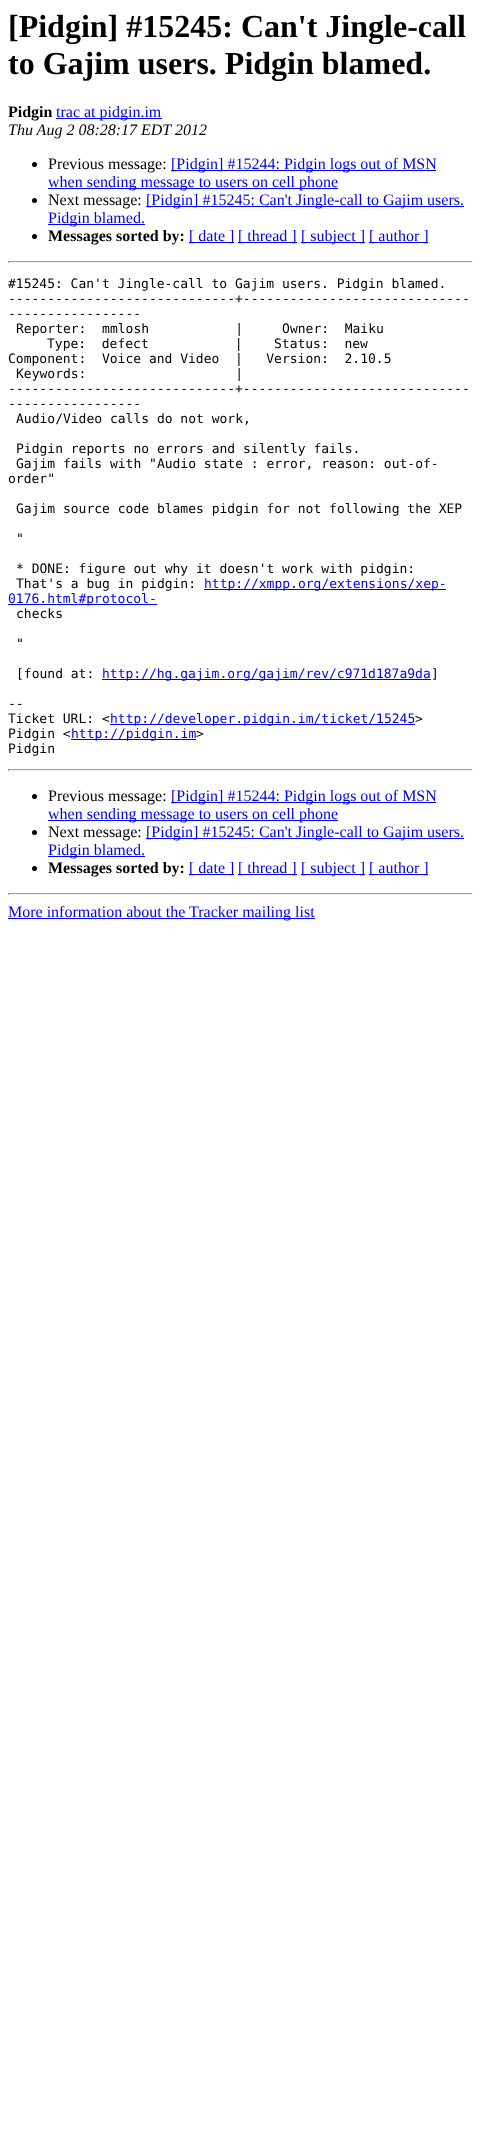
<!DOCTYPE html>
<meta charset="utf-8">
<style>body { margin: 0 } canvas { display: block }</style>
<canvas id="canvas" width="481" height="2129"></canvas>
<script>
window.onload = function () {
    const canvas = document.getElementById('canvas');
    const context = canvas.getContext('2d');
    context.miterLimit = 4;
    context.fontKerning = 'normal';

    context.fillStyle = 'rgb(255, 255, 255)';
    context.fillRect(0, 0, 481, 2129);
    context.fillStyle = 'rgb(0, 0, 238)';
    context.fillRect(56, 118, 106, 1);
    context.fillStyle = 'rgb(0, 0, 0)';
    context.beginPath();
    context.arc(34.5, 164.5, 2.5, 0, 2 * Math.PI);
    context.fill();
    context.fillStyle = 'rgb(0, 0, 238)';
    context.fillRect(171, 170, 265, 1);
    context.fillRect(48, 188, 290, 1);
    context.fillStyle = 'rgb(0, 0, 0)';
    context.beginPath();
    context.arc(34.5, 200.5, 2.5, 0, 2 * Math.PI);
    context.fill();
    context.fillStyle = 'rgb(0, 0, 238)';
    context.fillRect(146, 206, 318, 1);
    context.fillRect(48, 224, 97, 1);
    context.fillStyle = 'rgb(0, 0, 0)';
    context.beginPath();
    context.arc(34.5, 236.5, 2.5, 0, 2 * Math.PI);
    context.fill();
    context.fillStyle = 'rgb(0, 0, 238)';
    context.fillRect(189, 242, 45, 1);
    context.fillRect(238, 242, 59, 1);
    context.fillRect(301, 242, 64, 1);
    context.fillRect(369, 242, 59, 1);
    context.fillStyle = 'rgb(159, 159, 159)';
    context.fillRect(8, 261, 465, 1);
    context.fillStyle = 'rgb(238, 238, 238)';
    context.fillRect(472, 261, 1, 2);
    context.fillRect(8, 262, 465, 1);
    context.fillStyle = 'rgb(159, 159, 159)';
    context.fillRect(8, 261, 1, 2);
    context.fillStyle = 'rgb(0, 0, 238)';
    context.fillRect(204, 589, 242, 1);
    context.fillRect(8, 604, 149, 1);
    context.fillRect(102, 679, 329, 1);
    context.fillRect(110, 724, 305, 1);
    context.fillRect(71, 739, 125, 1);
    context.fillStyle = 'rgb(159, 159, 159)';
    context.fillRect(8, 769, 465, 1);
    context.fillStyle = 'rgb(238, 238, 238)';
    context.fillRect(472, 769, 1, 2);
    context.fillRect(8, 770, 465, 1);
    context.fillStyle = 'rgb(159, 159, 159)';
    context.fillRect(8, 769, 1, 2);
    context.fillStyle = 'rgb(0, 0, 0)';
    context.beginPath();
    context.arc(34.5, 796.5, 2.5, 0, 2 * Math.PI);
    context.fill();
    context.fillStyle = 'rgb(0, 0, 238)';
    context.fillRect(171, 802, 265, 1);
    context.fillRect(48, 820, 290, 1);
    context.fillStyle = 'rgb(0, 0, 0)';
    context.beginPath();
    context.arc(34.5, 832.5, 2.5, 0, 2 * Math.PI);
    context.fill();
    context.fillStyle = 'rgb(0, 0, 238)';
    context.fillRect(146, 838, 318, 1);
    context.fillRect(48, 856, 97, 1);
    context.fillStyle = 'rgb(0, 0, 0)';
    context.beginPath();
    context.arc(34.5, 868.5, 2.5, 0, 2 * Math.PI);
    context.fill();
    context.fillStyle = 'rgb(0, 0, 238)';
    context.fillRect(189, 874, 45, 1);
    context.fillRect(238, 874, 59, 1);
    context.fillRect(301, 874, 64, 1);
    context.fillRect(369, 874, 59, 1);
    context.fillStyle = 'rgb(159, 159, 159)';
    context.fillRect(8, 893, 465, 1);
    context.fillStyle = 'rgb(238, 238, 238)';
    context.fillRect(472, 893, 1, 2);
    context.fillRect(8, 894, 465, 1);
    context.fillStyle = 'rgb(159, 159, 159)';
    context.fillRect(8, 893, 1, 2);
    context.fillStyle = 'rgb(0, 0, 238)';
    context.fillRect(8, 918, 307, 1);
    context.font = 'bold 32px Liberation Serif';
    context.fillStyle = 'rgb(0, 0, 0)';
    context.fillText('[Pidgin] #15245: Can\'t Jingle-call', 8, 37);
    context.fillText('to Gajim users. Pidgin blamed.', 8, 74);
    context.font = 'bold 16px Liberation Serif';
    context.fillText('Pidgin', 8, 117);
    context.font = '16px Liberation Serif';
    context.fillStyle = 'rgb(0, 0, 238)';
    context.fillText('trac at pidgin.im', 56, 117);
    context.font = 'italic 16px Liberation Serif';
    context.fillStyle = 'rgb(0, 0, 0)';
    context.fillText('Thu Aug 2 08:28:17 EDT 2012', 8, 135);
    context.font = '16px Liberation Serif';
    context.fillText('Previous message:', 48, 169);
    context.fillStyle = 'rgb(0, 0, 238)';
    context.fillText('[Pidgin] #15244: Pidgin logs out of MSN', 171, 169);
    context.fillText('when sending message to users on cell phone', 48, 187);
    context.fillStyle = 'rgb(0, 0, 0)';
    context.fillText('Next message:', 48, 205);
    context.fillStyle = 'rgb(0, 0, 238)';
    context.fillText('[Pidgin] #15245: Can\'t Jingle-call to Gajim users.', 146, 205);
    context.fillText('Pidgin blamed.', 48, 223);
    context.font = 'bold 16px Liberation Serif';
    context.fillStyle = 'rgb(0, 0, 0)';
    context.fillText('Messages sorted by:', 48, 241);
    context.font = '16px Liberation Serif';
    context.fillStyle = 'rgb(0, 0, 238)';
    context.fillText('[ date ]', 189, 241);
    context.fillText('[ thread ]', 238, 241);
    context.fillText('[ subject ]', 301, 241);
    context.fillText('[ author ]', 369, 241);
    context.font = '13px DejaVu Sans Mono';
    context.fillStyle = 'rgb(0, 0, 0)';
    context.fillText('#15245: Can\'t Jingle-call to Gajim users. Pidgin blamed.', 8, 288);
    context.fillText('-----------------------------+-----------------------------', 8, 303);
    context.fillText('-----------------', 8, 318);
    context.fillText('Reporter:  mmlosh           |     Owner:  Maiku', 16, 333);
    context.fillText('Type:  defect           |    Status:  new', 47, 348);
    context.fillText('Component:  Voice and Video  |   Version:  2.10.5', 8, 363);
    context.fillText('Keywords:                   |', 16, 378);
    context.fillText('-----------------------------+-----------------------------', 8, 393);
    context.fillText('-----------------', 8, 408);
    context.fillText('Audio/Video calls do not work,', 16, 423);
    context.fillText('Pidgin reports no errors and silently fails.', 16, 453);
    context.fillText('Gajim fails with "Audio state : error, reason: out-of-', 16, 468);
    context.fillText('order"', 8, 483);
    context.fillText('Gajim source code blames pidgin for not following the XEP', 16, 513);
    context.fillText('"', 16, 543);
    context.fillText('* DONE: figure out why it doesn\'t work with pidgin:', 16, 573);
    context.fillText('That\'s a bug in pidgin:', 16, 588);
    context.fillStyle = 'rgb(0, 0, 238)';
    context.fillText('http://xmpp.org/extensions/xep-', 204, 588);
    context.fillText('0176.html#protocol-', 8, 603);
    context.fillStyle = 'rgb(0, 0, 0)';
    context.fillText('checks', 16, 618);
    context.fillText('"', 16, 648);
    context.fillText('[found at:', 16, 678);
    context.fillStyle = 'rgb(0, 0, 238)';
    context.fillText('http://hg.gajim.org/gajim/rev/c971d187a9da', 102, 678);
    context.fillStyle = 'rgb(0, 0, 0)';
    context.fillText(']', 431, 678);
    context.fillText('--', 8, 708);
    context.fillText('Ticket URL: <', 8, 723);
    context.fillStyle = 'rgb(0, 0, 238)';
    context.fillText('http://developer.pidgin.im/ticket/15245', 110, 723);
    context.fillStyle = 'rgb(0, 0, 0)';
    context.fillText('>', 415, 723);
    context.fillText('Pidgin <', 8, 738);
    context.fillStyle = 'rgb(0, 0, 238)';
    context.fillText('http://pidgin.im', 71, 738);
    context.fillStyle = 'rgb(0, 0, 0)';
    context.fillText('>', 196, 738);
    context.fillText('Pidgin', 8, 753);
    context.font = '16px Liberation Serif';
    context.fillText('Previous message:', 48, 801);
    context.fillStyle = 'rgb(0, 0, 238)';
    context.fillText('[Pidgin] #15244: Pidgin logs out of MSN', 171, 801);
    context.fillText('when sending message to users on cell phone', 48, 819);
    context.fillStyle = 'rgb(0, 0, 0)';
    context.fillText('Next message:', 48, 837);
    context.fillStyle = 'rgb(0, 0, 238)';
    context.fillText('[Pidgin] #15245: Can\'t Jingle-call to Gajim users.', 146, 837);
    context.fillText('Pidgin blamed.', 48, 855);
    context.font = 'bold 16px Liberation Serif';
    context.fillStyle = 'rgb(0, 0, 0)';
    context.fillText('Messages sorted by:', 48, 873);
    context.font = '16px Liberation Serif';
    context.fillStyle = 'rgb(0, 0, 238)';
    context.fillText('[ date ]', 189, 873);
    context.fillText('[ thread ]', 238, 873);
    context.fillText('[ subject ]', 301, 873);
    context.fillText('[ author ]', 369, 873);
    context.fillText('More information about the Tracker mailing list', 8, 917);
};
</script>
